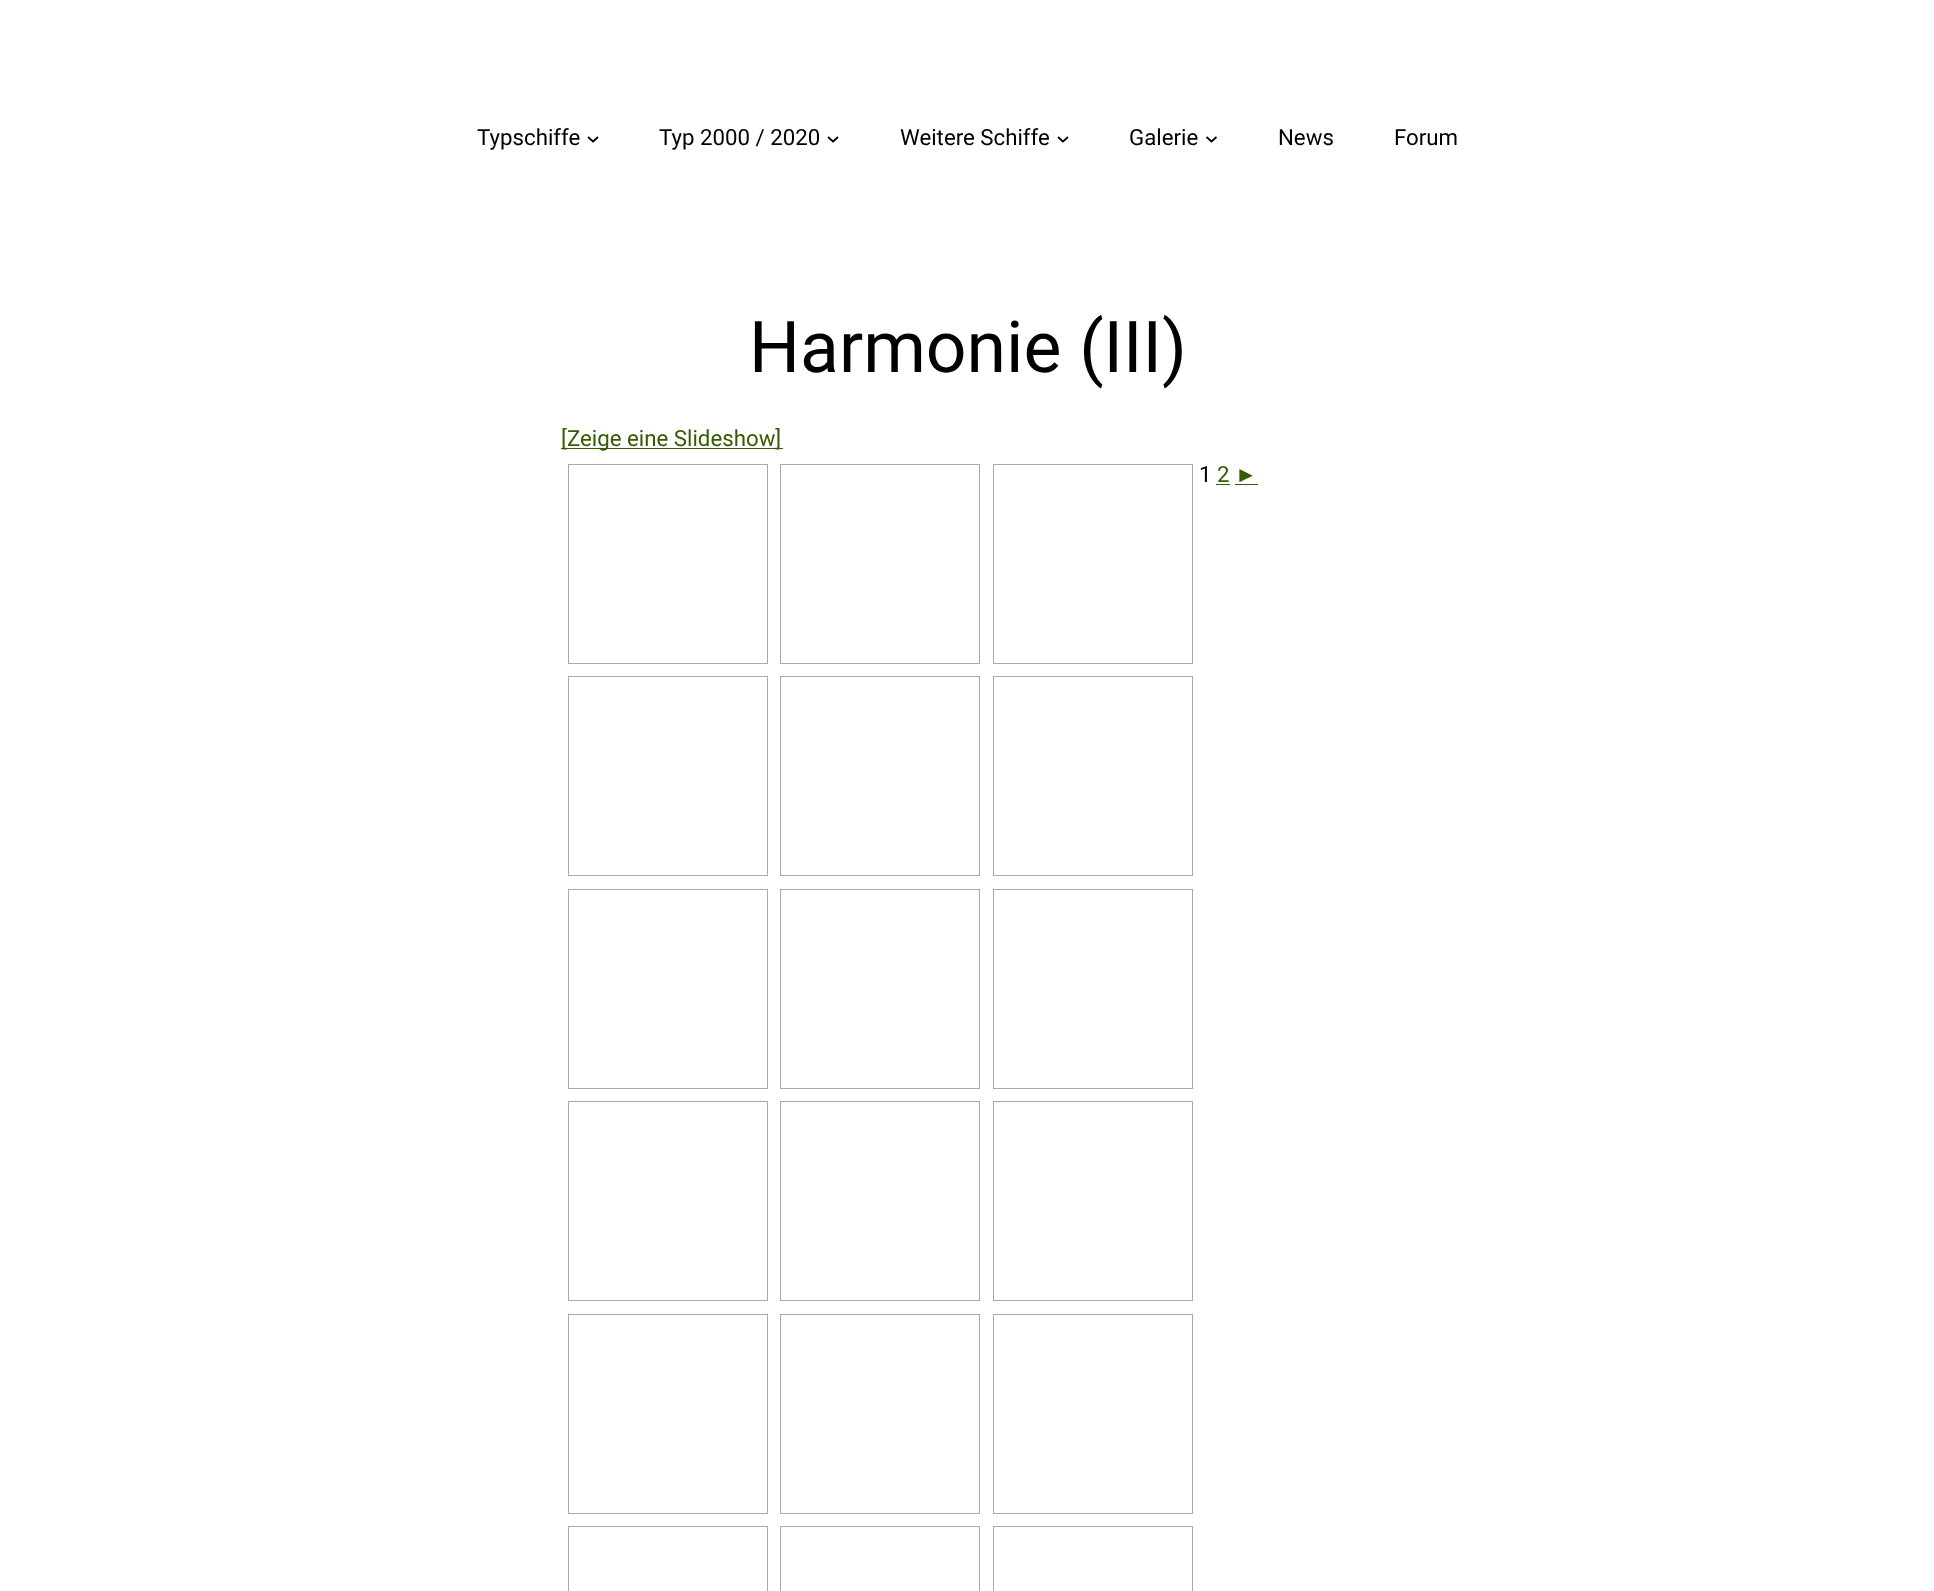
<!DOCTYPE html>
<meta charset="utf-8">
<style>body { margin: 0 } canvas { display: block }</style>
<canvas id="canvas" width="1934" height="1591"></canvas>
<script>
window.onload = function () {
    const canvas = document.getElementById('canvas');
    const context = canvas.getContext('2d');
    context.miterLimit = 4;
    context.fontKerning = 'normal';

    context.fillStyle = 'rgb(255, 255, 255)';
    context.fillRect(0, 0, 1934, 1591);
    context.beginPath();
    context.moveTo(588, 137);
    context.lineTo(593, 141.5);
    context.lineTo(598, 137);
    context.strokeStyle = 'rgb(0, 0, 0)';
    context.lineWidth = 1.7;
    context.stroke();
    context.beginPath();
    context.moveTo(828, 137);
    context.lineTo(833, 141.5);
    context.lineTo(838, 137);
    context.stroke();
    context.beginPath();
    context.moveTo(1058, 137);
    context.lineTo(1063, 141.5);
    context.lineTo(1068, 137);
    context.stroke();
    context.beginPath();
    context.moveTo(1206.5, 137);
    context.lineTo(1211.5, 141.5);
    context.lineTo(1216.5, 137);
    context.stroke();
    context.fillStyle = 'rgb(52, 92, 0)';
    context.fillRect(561, 448, 222, 1);
    context.strokeStyle = 'rgb(169, 169, 169)';
    context.lineWidth = 1;
    context.strokeRect(568.5, 464.5, 199, 199);
    context.strokeRect(780.5, 464.5, 199, 199);
    context.strokeRect(993.5, 464.5, 199, 199);
    context.fillRect(1216, 484, 14, 1);
    context.fillRect(1235, 484, 23, 1);
    context.strokeRect(568.5, 676.5, 199, 199);
    context.strokeRect(780.5, 676.5, 199, 199);
    context.strokeRect(993.5, 676.5, 199, 199);
    context.strokeRect(568.5, 889.5, 199, 199);
    context.strokeRect(780.5, 889.5, 199, 199);
    context.strokeRect(993.5, 889.5, 199, 199);
    context.strokeRect(568.5, 1101.5, 199, 199);
    context.strokeRect(780.5, 1101.5, 199, 199);
    context.strokeRect(993.5, 1101.5, 199, 199);
    context.strokeRect(568.5, 1314.5, 199, 199);
    context.strokeRect(780.5, 1314.5, 199, 199);
    context.strokeRect(993.5, 1314.5, 199, 199);
    context.strokeRect(568.5, 1526.5, 199, 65);
    context.strokeRect(780.5, 1526.5, 199, 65);
    context.strokeRect(993.5, 1526.5, 199, 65);
    context.font = '22.25px Roboto';
    context.fillStyle = 'rgb(0, 0, 0)';
    context.fillText('Typschiffe', 477, 145);
    context.fillText('Typ 2000 / 2020', 659, 145);
    context.fillText('Weitere Schiffe', 900, 145);
    context.fillText('Galerie', 1129, 145);
    context.fillText('News', 1278, 145);
    context.fillText('Forum', 1394, 145);
    context.font = '71.5px Roboto';
    context.fillText('Harmonie (III)', 749, 372);
    context.font = '22.25px Roboto';
    context.fillStyle = 'rgb(52, 92, 0)';
    context.fillText('[Zeige eine Slideshow]', 561, 446);
    context.fillStyle = 'rgb(0, 0, 0)';
    context.fillText('1', 1199, 482);
    context.fillStyle = 'rgb(52, 92, 0)';
    context.fillText('2', 1217, 482);
    context.font = '22.25px Liberation Sans';
    context.fillText('►', 1235, 482);
};
</script>
